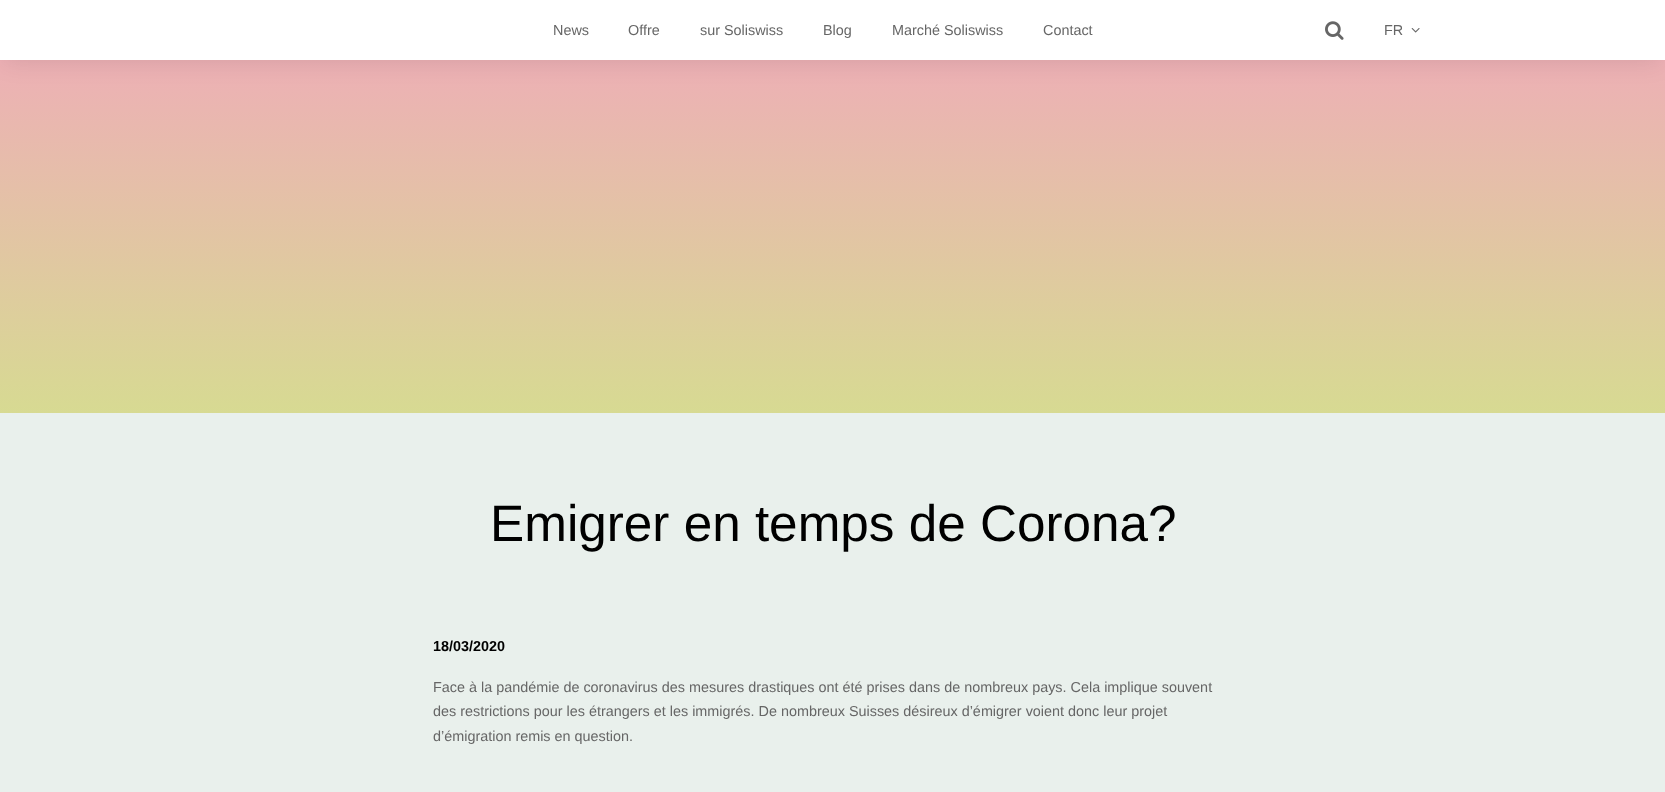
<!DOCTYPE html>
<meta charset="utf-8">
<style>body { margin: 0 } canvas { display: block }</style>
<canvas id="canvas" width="1665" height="792"></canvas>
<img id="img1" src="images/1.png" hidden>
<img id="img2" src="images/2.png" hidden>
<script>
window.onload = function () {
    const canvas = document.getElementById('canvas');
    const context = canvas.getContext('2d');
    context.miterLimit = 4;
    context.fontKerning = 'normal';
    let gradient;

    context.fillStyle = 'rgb(233, 240, 236)';
    context.fillRect(0, 0, 1665, 792);
    gradient = context.createLinearGradient(833, 60, 833, 413);
    gradient.addColorStop(0, 'rgb(237, 176, 181)');
    gradient.addColorStop(1, 'rgb(215, 218, 146)');
    context.fillStyle = gradient;
    context.fillRect(0, 60, 1665, 353);
    context.fillStyle = 'rgba(0, 0, 0, 0.1)';
    context.filter = 'blur(12px)';
    context.beginPath();
    context.rect(5, 11, 1655, 50);
    context.fill();
    context.filter = 'none';
    context.fillStyle = 'rgb(255, 255, 255)';
    context.fillRect(0, 0, 1665, 60);
    context.drawImage(document.getElementById('img1'), 1325, 21, 19, 19);
    context.drawImage(document.getElementById('img2'), 1411, 28, 9, 5);
    context.font = '14.4px Liberation Sans';
    context.fillStyle = 'rgb(102, 102, 102)';
    context.fillText('News', 553, 35);
    context.fillText('Offre', 628, 35);
    context.fillText('sur Soliswiss', 700, 35);
    context.fillText('Blog', 823, 35);
    context.fillText('Marché Soliswiss', 892, 35);
    context.fillText('Contact', 1043, 35);
    context.fillText('FR', 1384, 35);
    context.font = '51.25px Liberation Sans';
    context.fillStyle = 'rgb(0, 0, 0)';
    context.fillText('Emigrer en temps de Corona?', 490, 541);
    context.font = 'bold 14.4px Liberation Sans';
    context.fillText('18/03/2020', 433, 651);
    context.font = '14.4px Liberation Sans';
    context.fillStyle = 'rgb(102, 102, 102)';
    context.fillText('Face à la pandémie de coronavirus des mesures drastiques ont été prises dans de nombreux pays. Cela implique souvent', 433, 692);
    context.fillText('des restrictions pour les étrangers et les immigrés. De nombreux Suisses désireux d’émigrer voient donc leur projet', 433, 716);
    context.fillText('d’émigration remis en question.', 433, 741);
};
</script>
